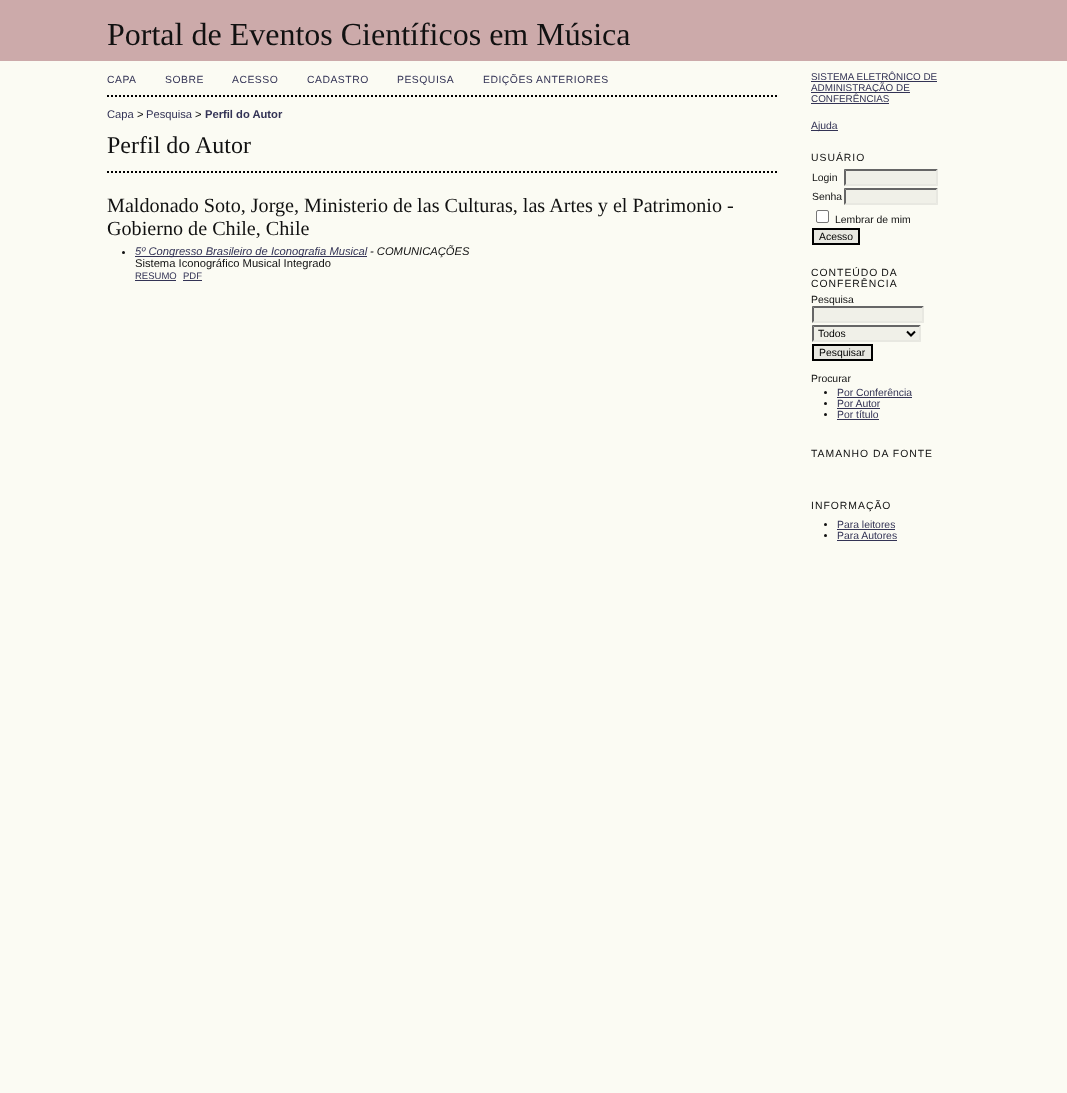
<!DOCTYPE html>
<meta charset="utf-8">
<style>body { margin: 0 } canvas { display: block }</style>
<canvas id="canvas" width="1067" height="1093"></canvas>
<script>
window.onload = function () {
    const canvas = document.getElementById('canvas');
    const context = canvas.getContext('2d');
    context.miterLimit = 4;
    context.fontKerning = 'normal';

    context.fillStyle = 'rgb(251, 251, 243)';
    context.fillRect(0, 0, 1067, 1093);
    context.fillStyle = 'rgb(204, 170, 170)';
    context.fillRect(0, 0, 1067, 61);
    context.beginPath();
    context.moveTo(107, 96);
    context.lineTo(779, 96);
    context.strokeStyle = 'rgb(0, 0, 0)';
    context.lineWidth = 2;
    context.setLineDash([2, 2]);
    context.stroke();
    context.beginPath();
    context.moveTo(107, 172);
    context.lineTo(779, 172);
    context.stroke();
    context.fillStyle = 'rgb(17, 17, 17)';
    context.beginPath();
    context.arc(123.5, 252.5, 1.5, 0, 2 * Math.PI);
    context.fill();
    context.fillStyle = 'rgb(51, 51, 85)';
    context.fillRect(135, 256, 232, 1);
    context.fillRect(135, 280, 41, 1);
    context.fillRect(183, 280, 19, 1);
    context.fillRect(811, 81, 126, 1);
    context.fillRect(811, 92, 99, 1);
    context.fillRect(811, 103, 78, 1);
    context.fillRect(811, 130, 27, 1);
    context.fillStyle = 'rgb(240, 240, 232)';
    context.fillRect(844, 169, 94, 17);
    context.fillStyle = 'rgb(102, 102, 102)';
    context.beginPath();
    context.moveTo(844, 169);
    context.lineTo(938, 169);
    context.lineTo(936, 171);
    context.lineTo(846, 171);
    context.closePath();
    context.fill();
    context.fillStyle = 'rgb(232, 232, 225)';
    context.beginPath();
    context.moveTo(938, 169);
    context.lineTo(938, 186);
    context.lineTo(936, 184);
    context.lineTo(936, 171);
    context.closePath();
    context.fill();
    context.beginPath();
    context.moveTo(938, 186);
    context.lineTo(844, 186);
    context.lineTo(846, 184);
    context.lineTo(936, 184);
    context.closePath();
    context.fill();
    context.fillStyle = 'rgb(102, 102, 102)';
    context.beginPath();
    context.moveTo(844, 186);
    context.lineTo(844, 169);
    context.lineTo(846, 171);
    context.lineTo(846, 184);
    context.closePath();
    context.fill();
    context.fillStyle = 'rgb(240, 240, 232)';
    context.fillRect(844, 188, 94, 17);
    context.fillStyle = 'rgb(102, 102, 102)';
    context.beginPath();
    context.moveTo(844, 188);
    context.lineTo(938, 188);
    context.lineTo(936, 190);
    context.lineTo(846, 190);
    context.closePath();
    context.fill();
    context.fillStyle = 'rgb(232, 232, 225)';
    context.beginPath();
    context.moveTo(938, 188);
    context.lineTo(938, 205);
    context.lineTo(936, 203);
    context.lineTo(936, 190);
    context.closePath();
    context.fill();
    context.beginPath();
    context.moveTo(938, 205);
    context.lineTo(844, 205);
    context.lineTo(846, 203);
    context.lineTo(936, 203);
    context.closePath();
    context.fill();
    context.fillStyle = 'rgb(102, 102, 102)';
    context.beginPath();
    context.moveTo(844, 205);
    context.lineTo(844, 188);
    context.lineTo(846, 190);
    context.lineTo(846, 203);
    context.closePath();
    context.fill();
    context.fillStyle = 'rgb(255, 255, 255)';
    context.beginPath();
    context.roundRect(816.5, 210.5, 12, 12, 1.5);
    context.fill();
    context.strokeStyle = 'rgb(118, 118, 118)';
    context.lineWidth = 1;
    context.setLineDash([]);
    context.stroke();
    context.fillStyle = 'rgb(232, 232, 225)';
    context.beginPath();
    context.rect(813, 229, 46, 15);
    context.fill();
    context.strokeStyle = 'rgb(0, 0, 0)';
    context.lineWidth = 2;
    context.stroke();
    context.fillStyle = 'rgb(240, 240, 232)';
    context.fillRect(812, 306, 112, 17);
    context.fillStyle = 'rgb(102, 102, 102)';
    context.beginPath();
    context.moveTo(812, 306);
    context.lineTo(924, 306);
    context.lineTo(922, 308);
    context.lineTo(814, 308);
    context.closePath();
    context.fill();
    context.fillStyle = 'rgb(232, 232, 225)';
    context.beginPath();
    context.moveTo(924, 306);
    context.lineTo(924, 323);
    context.lineTo(922, 321);
    context.lineTo(922, 308);
    context.closePath();
    context.fill();
    context.beginPath();
    context.moveTo(924, 323);
    context.lineTo(812, 323);
    context.lineTo(814, 321);
    context.lineTo(922, 321);
    context.closePath();
    context.fill();
    context.fillStyle = 'rgb(102, 102, 102)';
    context.beginPath();
    context.moveTo(812, 323);
    context.lineTo(812, 306);
    context.lineTo(814, 308);
    context.lineTo(814, 321);
    context.closePath();
    context.fill();
    context.fillStyle = 'rgb(240, 240, 232)';
    context.fillRect(812, 325, 109, 17);
    context.fillStyle = 'rgb(102, 102, 102)';
    context.beginPath();
    context.moveTo(812, 325);
    context.lineTo(921, 325);
    context.lineTo(919, 327);
    context.lineTo(814, 327);
    context.closePath();
    context.fill();
    context.fillStyle = 'rgb(232, 232, 225)';
    context.beginPath();
    context.moveTo(921, 325);
    context.lineTo(921, 342);
    context.lineTo(919, 340);
    context.lineTo(919, 327);
    context.closePath();
    context.fill();
    context.beginPath();
    context.moveTo(921, 342);
    context.lineTo(812, 342);
    context.lineTo(814, 340);
    context.lineTo(919, 340);
    context.closePath();
    context.fill();
    context.fillStyle = 'rgb(102, 102, 102)';
    context.beginPath();
    context.moveTo(812, 342);
    context.lineTo(812, 325);
    context.lineTo(814, 327);
    context.lineTo(814, 340);
    context.closePath();
    context.fill();
    context.beginPath();
    context.moveTo(907, 331.5);
    context.lineTo(911, 335.5);
    context.lineTo(915, 331.5);
    context.stroke();
    context.fillStyle = 'rgb(232, 232, 225)';
    context.beginPath();
    context.rect(813, 345, 59, 15);
    context.fill();
    context.stroke();
    context.fillStyle = 'rgb(17, 17, 17)';
    context.beginPath();
    context.arc(825.5, 392.5, 1.5, 0, 2 * Math.PI);
    context.fill();
    context.fillStyle = 'rgb(51, 51, 85)';
    context.fillRect(837, 397, 75, 1);
    context.fillStyle = 'rgb(17, 17, 17)';
    context.beginPath();
    context.arc(825.5, 403.5, 1.5, 0, 2 * Math.PI);
    context.fill();
    context.fillStyle = 'rgb(51, 51, 85)';
    context.fillRect(837, 408, 43, 1);
    context.fillStyle = 'rgb(17, 17, 17)';
    context.beginPath();
    context.arc(825.5, 414.5, 1.5, 0, 2 * Math.PI);
    context.fill();
    context.fillStyle = 'rgb(51, 51, 85)';
    context.fillRect(837, 419, 42, 1);
    context.fillStyle = 'rgb(17, 17, 17)';
    context.beginPath();
    context.arc(825.5, 524.5, 1.5, 0, 2 * Math.PI);
    context.fill();
    context.fillStyle = 'rgb(51, 51, 85)';
    context.fillRect(837, 529, 58, 1);
    context.fillStyle = 'rgb(17, 17, 17)';
    context.beginPath();
    context.arc(825.5, 535.5, 1.5, 0, 2 * Math.PI);
    context.fill();
    context.fillStyle = 'rgb(51, 51, 85)';
    context.fillRect(837, 540, 60, 1);
    context.font = '32px Liberation Serif';
    context.fillStyle = 'rgb(17, 17, 17)';
    context.fillText('Portal de Eventos Científicos em Música', 107, 45);
    context.letterSpacing = '0.5px';
    context.font = '10.4px Liberation Sans';
    context.fillStyle = 'rgb(51, 51, 85)';
    context.fillText('CAPA', 107, 83);
    context.fillText('SOBRE', 165, 83);
    context.fillText('ACESSO', 232, 83);
    context.fillText('CADASTRO', 307, 83);
    context.fillText('PESQUISA', 397, 83);
    context.fillText('EDIÇÕES ANTERIORES', 483, 83);
    context.letterSpacing = '0px';
    context.font = '11.2px Liberation Sans';
    context.fillText('Capa', 107, 118);
    context.fillStyle = 'rgb(17, 17, 17)';
    context.fillText('>', 137, 118);
    context.fillStyle = 'rgb(51, 51, 85)';
    context.fillText('Pesquisa', 146, 118);
    context.fillStyle = 'rgb(17, 17, 17)';
    context.fillText('>', 195, 118);
    context.font = 'bold 11.2px Liberation Sans';
    context.fillStyle = 'rgb(51, 51, 85)';
    context.fillText('Perfil do Autor', 205, 118);
    context.font = '24px Liberation Serif';
    context.fillStyle = 'rgb(17, 17, 17)';
    context.fillText('Perfil do Autor', 107, 153);
    context.font = '20.15px Liberation Serif';
    context.fillText('Maldonado Soto, Jorge, Ministerio de las Culturas, las Artes y el Patrimonio -', 107, 212);
    context.fillText('Gobierno de Chile, Chile', 107, 235);
    context.font = 'italic 11.2px Liberation Sans';
    context.fillStyle = 'rgb(51, 51, 85)';
    context.fillText('5º Congresso Brasileiro de Iconografia Musical', 135, 255);
    context.fillStyle = 'rgb(17, 17, 17)';
    context.fillText('- COMUNICAÇÕES', 370, 255);
    context.font = '11.2px Liberation Sans';
    context.fillText('Sistema Iconográfico Musical Integrado', 135, 267);
    context.font = '9.5px Liberation Sans';
    context.fillStyle = 'rgb(51, 51, 85)';
    context.fillText('RESUMO', 135, 279);
    context.fillText('PDF', 183, 279);
    context.font = '9.9px Liberation Sans';
    context.fillText('SISTEMA ELETRÔNICO DE', 811, 80);
    context.fillText('ADMINISTRAÇÃO DE', 811, 91);
    context.fillText('CONFERÊNCIAS', 811, 102);
    context.font = '10.4px Liberation Sans';
    context.fillText('Ajuda', 811, 129);
    context.letterSpacing = '1px';
    context.fillStyle = 'rgb(17, 17, 17)';
    context.fillText('USUÁRIO', 811, 161);
    context.letterSpacing = '0px';
    context.fillText('Login', 812, 181);
    context.fillText('Senha', 812, 200);
    context.fillText('Lembrar de mim', 835, 223);
    context.fillStyle = 'rgb(0, 0, 0)';
    context.fillText('Acesso', 819, 240);
    context.letterSpacing = '1px';
    context.wordSpacing = '-1px';
    context.fillStyle = 'rgb(17, 17, 17)';
    context.fillText('CONTEÚDO DA', 811, 276);
    context.wordSpacing = '0px';
    context.fillText('CONFERÊNCIA', 811, 287);
    context.letterSpacing = '0px';
    context.fillText('Pesquisa', 811, 303);
    context.fillStyle = 'rgb(0, 0, 0)';
    context.fillText('Todos', 818, 337);
    context.fillText('Pesquisar', 819, 356);
    context.fillStyle = 'rgb(17, 17, 17)';
    context.fillText('Procurar', 811, 382);
    context.fillStyle = 'rgb(51, 51, 85)';
    context.fillText('Por Conferência', 837, 396);
    context.fillText('Por Autor', 837, 407);
    context.fillText('Por título', 837, 418);
    context.letterSpacing = '1px';
    context.fillStyle = 'rgb(17, 17, 17)';
    context.fillText('TAMANHO DA FONTE', 811, 457);
    context.fillText('INFORMAÇÃO', 811, 509);
    context.letterSpacing = '0px';
    context.fillStyle = 'rgb(51, 51, 85)';
    context.fillText('Para leitores', 837, 528);
    context.fillText('Para Autores', 837, 539);
};
</script>
